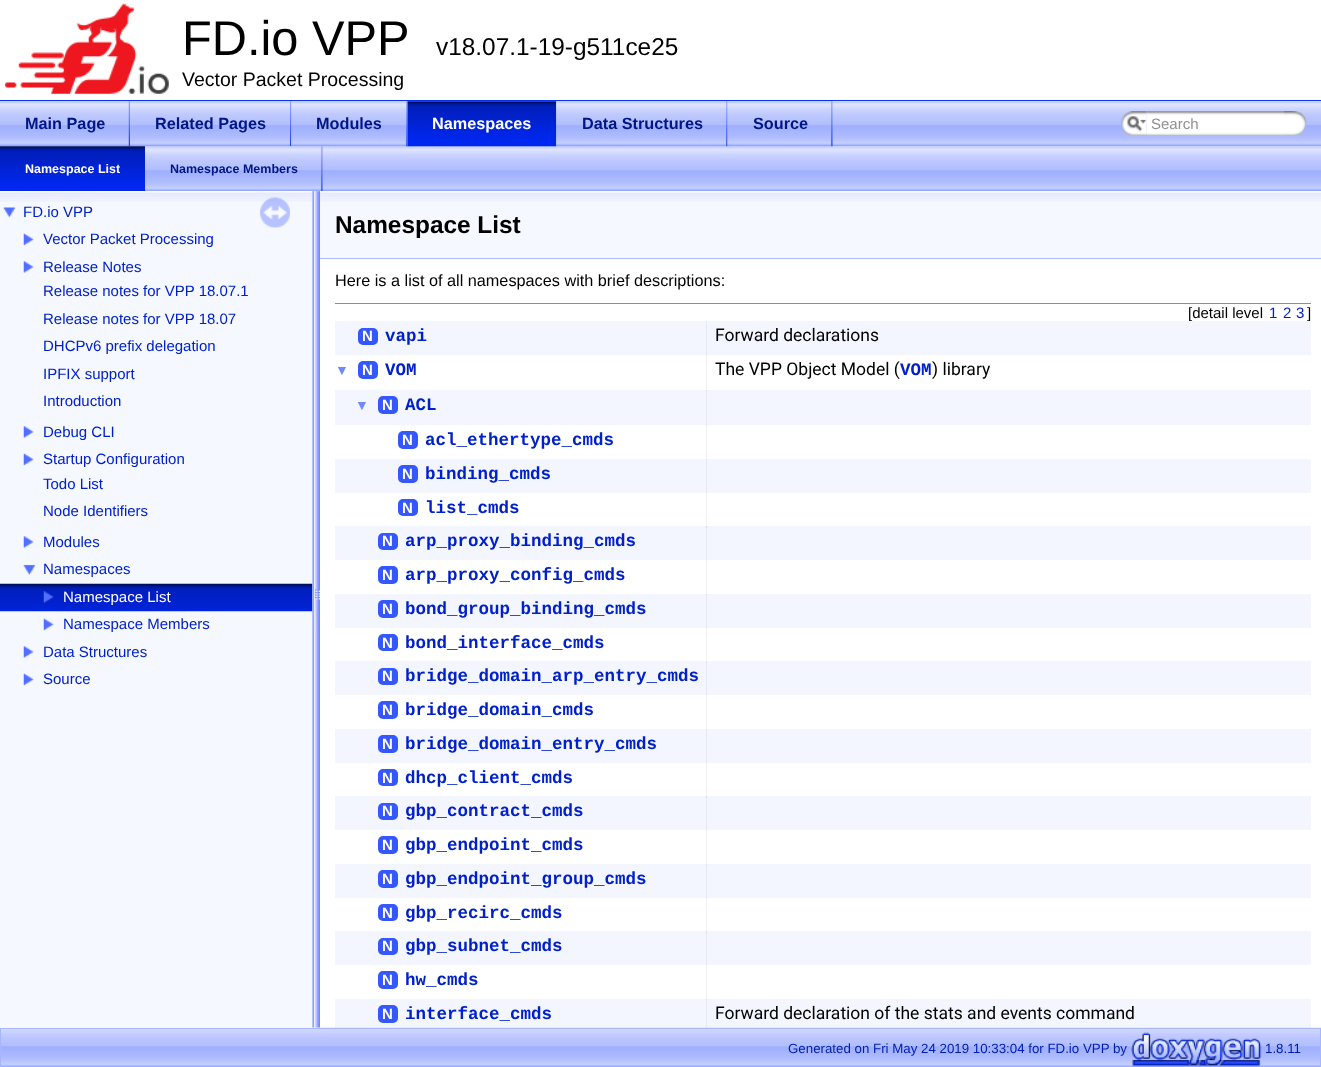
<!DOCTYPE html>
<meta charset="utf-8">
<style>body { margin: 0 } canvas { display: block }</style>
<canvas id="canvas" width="1321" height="1067"></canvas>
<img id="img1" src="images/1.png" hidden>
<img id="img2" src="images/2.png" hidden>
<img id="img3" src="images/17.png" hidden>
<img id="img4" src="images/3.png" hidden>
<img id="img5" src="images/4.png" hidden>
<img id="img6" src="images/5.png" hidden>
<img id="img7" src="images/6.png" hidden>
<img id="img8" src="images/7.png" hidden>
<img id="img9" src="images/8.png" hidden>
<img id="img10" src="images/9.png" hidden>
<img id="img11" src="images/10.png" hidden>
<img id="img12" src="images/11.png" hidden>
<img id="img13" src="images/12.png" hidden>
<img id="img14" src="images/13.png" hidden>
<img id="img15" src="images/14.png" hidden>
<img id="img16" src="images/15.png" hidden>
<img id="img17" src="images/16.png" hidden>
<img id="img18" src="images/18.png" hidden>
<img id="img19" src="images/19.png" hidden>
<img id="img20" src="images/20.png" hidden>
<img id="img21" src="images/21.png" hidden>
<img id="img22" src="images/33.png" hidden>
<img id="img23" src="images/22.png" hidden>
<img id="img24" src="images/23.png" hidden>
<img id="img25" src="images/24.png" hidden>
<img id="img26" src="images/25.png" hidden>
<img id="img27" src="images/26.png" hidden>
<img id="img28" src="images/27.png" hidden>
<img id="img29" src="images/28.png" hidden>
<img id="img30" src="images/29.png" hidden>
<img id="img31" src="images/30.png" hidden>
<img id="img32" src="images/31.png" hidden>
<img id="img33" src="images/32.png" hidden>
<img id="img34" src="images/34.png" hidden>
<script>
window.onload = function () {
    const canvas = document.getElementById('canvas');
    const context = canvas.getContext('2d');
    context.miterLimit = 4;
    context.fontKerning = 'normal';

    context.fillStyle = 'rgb(255, 255, 255)';
    context.fillRect(0, 0, 1321, 1067);
    context.fillStyle = 'rgb(242, 242, 242)';
    context.fillRect(706, 355, 1, 36);
    context.fillStyle = 'rgb(230, 230, 230)';
    context.fillRect(706, 355, 1, 1);
    context.fillStyle = 'rgb(242, 242, 242)';
    context.fillRect(706, 425, 1, 35);
    context.fillStyle = 'rgb(230, 230, 230)';
    context.fillRect(706, 425, 1, 1);
    context.fillStyle = 'rgb(242, 242, 242)';
    context.fillRect(706, 493, 1, 35);
    context.fillStyle = 'rgb(230, 230, 230)';
    context.fillRect(706, 493, 1, 1);
    context.fillStyle = 'rgb(242, 242, 242)';
    context.fillRect(706, 560, 1, 35);
    context.fillStyle = 'rgb(230, 230, 230)';
    context.fillRect(706, 560, 1, 1);
    context.fillStyle = 'rgb(242, 242, 242)';
    context.fillRect(706, 628, 1, 35);
    context.fillStyle = 'rgb(230, 230, 230)';
    context.fillRect(706, 628, 1, 1);
    context.fillStyle = 'rgb(242, 242, 242)';
    context.fillRect(706, 695, 1, 35);
    context.fillStyle = 'rgb(230, 230, 230)';
    context.fillRect(706, 695, 1, 1);
    context.fillStyle = 'rgb(242, 242, 242)';
    context.fillRect(706, 763, 1, 35);
    context.fillStyle = 'rgb(230, 230, 230)';
    context.fillRect(706, 763, 1, 1);
    context.fillStyle = 'rgb(242, 242, 242)';
    context.fillRect(706, 830, 1, 35);
    context.fillStyle = 'rgb(230, 230, 230)';
    context.fillRect(706, 830, 1, 1);
    context.fillStyle = 'rgb(242, 242, 242)';
    context.fillRect(706, 898, 1, 35);
    context.fillStyle = 'rgb(230, 230, 230)';
    context.fillRect(706, 898, 1, 1);
    context.fillStyle = 'rgb(242, 242, 242)';
    context.fillRect(706, 965, 1, 35);
    context.fillStyle = 'rgb(230, 230, 230)';
    context.fillRect(706, 965, 1, 1);
    context.fillStyle = 'rgb(9, 50, 255)';
    context.fillRect(0, 100, 1321, 1);
    context.drawImage(document.getElementById('img1'), 4, 3, 165, 91);
    context.drawImage(document.getElementById('img2'), 0, 101, 1321, 46);
    context.drawImage(document.getElementById('img3'), 0, 146, 1321, 46);
    context.drawImage(document.getElementById('img4'), 0, 101, 130, 46);
    context.drawImage(document.getElementById('img5'), 128, 101, 2, 46);
    context.drawImage(document.getElementById('img6'), 130, 101, 161, 46);
    context.drawImage(document.getElementById('img7'), 290, 101, 2, 46);
    context.drawImage(document.getElementById('img8'), 291, 101, 117, 46);
    context.drawImage(document.getElementById('img9'), 406, 101, 2, 46);
    context.drawImage(document.getElementById('img10'), 407, 101, 149, 46);
    context.drawImage(document.getElementById('img11'), 407, 101, 150, 46);
    context.drawImage(document.getElementById('img12'), 556, 101, 172, 46);
    context.drawImage(document.getElementById('img9'), 726, 101, 2, 46);
    context.drawImage(document.getElementById('img13'), 727, 101, 106, 46);
    context.drawImage(document.getElementById('img9'), 831, 101, 2, 46);
    context.drawImage(document.getElementById('img14'), 1121, 111, 26, 24);
    context.drawImage(document.getElementById('img15'), 1127, 116, 20, 16);
    context.drawImage(document.getElementById('img16'), 1146, 111, 147, 24);
    context.drawImage(document.getElementById('img17'), 1283, 111, 24, 24);
    context.drawImage(document.getElementById('img18'), 0, 146, 145, 1);
    context.drawImage(document.getElementById('img19'), 0, 146, 145, 45);
    context.drawImage(document.getElementById('img20'), 145, 146, 178, 46);
    context.drawImage(document.getElementById('img21'), 321, 146, 2, 45);
    context.fillStyle = 'rgb(243, 245, 255)';
    context.fillRect(335, 999, 976, 29);
    context.fillStyle = 'rgb(231, 233, 242)';
    context.fillRect(706, 999, 1, 29);
    context.drawImage(document.getElementById('img22'), 1, 1027, 1320, 40);
    context.fillStyle = 'rgb(246, 248, 255)';
    context.fillRect(0, 191, 313, 837);
    context.drawImage(document.getElementById('img23'), 0, 191, 313, 11);
    context.drawImage(document.getElementById('img24'), 3, 207, 13, 11);
    context.drawImage(document.getElementById('img25'), 23, 233, 11, 13);
    context.drawImage(document.getElementById('img26'), 23, 261, 11, 12);
    context.drawImage(document.getElementById('img26'), 23, 426, 11, 12);
    context.drawImage(document.getElementById('img25'), 23, 453, 11, 13);
    context.drawImage(document.getElementById('img26'), 23, 536, 11, 12);
    context.drawImage(document.getElementById('img27'), 23, 564, 13, 12);
    context.drawImage(document.getElementById('img28'), 0, 583, 313, 29);
    context.drawImage(document.getElementById('img29'), 43, 591, 11, 12);
    context.drawImage(document.getElementById('img30'), 43, 618, 11, 13);
    context.drawImage(document.getElementById('img26'), 23, 646, 11, 12);
    context.drawImage(document.getElementById('img25'), 23, 673, 11, 13);
    context.drawImage(document.getElementById('img31'), 260, 197, 30, 31);
    context.drawImage(document.getElementById('img32'), 312, 191, 8, 837);
    context.fillRect(320, 191, 1001, 67);
    context.drawImage(document.getElementById('img33'), 320, 191, 1001, 11);
    context.fillStyle = 'rgb(171, 185, 254)';
    context.fillRect(320, 258, 1001, 1);
    context.fillStyle = 'rgb(113, 137, 255)';
    context.fillRect(335, 303, 976, 1);
    context.fillStyle = 'rgb(243, 245, 255)';
    context.fillRect(335, 321, 976, 34);
    context.fillStyle = 'rgb(231, 233, 242)';
    context.fillRect(706, 321, 1, 34);
    context.fillStyle = 'rgb(53, 87, 255)';
    context.beginPath();
    context.roundRect(358, 328, 20, 17, 5);
    context.fill();
    context.beginPath();
    context.roundRect(358, 361, 20, 18, 5);
    context.fill();
    context.fillStyle = 'rgb(243, 245, 255)';
    context.fillRect(335, 390, 976, 35);
    context.fillStyle = 'rgb(231, 233, 242)';
    context.fillRect(706, 390, 1, 35);
    context.fillStyle = 'rgb(219, 221, 230)';
    context.fillRect(706, 390, 1, 1);
    context.fillStyle = 'rgb(53, 87, 255)';
    context.beginPath();
    context.roundRect(378, 396, 20, 18, 5);
    context.fill();
    context.beginPath();
    context.roundRect(398, 431, 20, 18, 5);
    context.fill();
    context.fillStyle = 'rgb(243, 245, 255)';
    context.fillRect(335, 459, 976, 34);
    context.fillStyle = 'rgb(231, 233, 242)';
    context.fillRect(706, 459, 1, 34);
    context.fillStyle = 'rgb(219, 221, 230)';
    context.fillRect(706, 459, 1, 1);
    context.fillStyle = 'rgb(53, 87, 255)';
    context.beginPath();
    context.roundRect(398, 465, 20, 18, 5);
    context.fill();
    context.beginPath();
    context.roundRect(398, 499, 20, 17, 5);
    context.fill();
    context.fillStyle = 'rgb(243, 245, 255)';
    context.fillRect(335, 526, 976, 34);
    context.fillStyle = 'rgb(231, 233, 242)';
    context.fillRect(706, 526, 1, 34);
    context.fillStyle = 'rgb(219, 221, 230)';
    context.fillRect(706, 526, 1, 2);
    context.fillStyle = 'rgb(53, 87, 255)';
    context.beginPath();
    context.roundRect(378, 533, 20, 17, 5);
    context.fill();
    context.beginPath();
    context.roundRect(378, 566, 20, 18, 5);
    context.fill();
    context.fillStyle = 'rgb(243, 245, 255)';
    context.fillRect(335, 594, 976, 34);
    context.fillStyle = 'rgb(231, 233, 242)';
    context.fillRect(706, 594, 1, 34);
    context.fillStyle = 'rgb(219, 221, 230)';
    context.fillRect(706, 594, 1, 1);
    context.fillStyle = 'rgb(53, 87, 255)';
    context.beginPath();
    context.roundRect(378, 600, 20, 18, 5);
    context.fill();
    context.beginPath();
    context.roundRect(378, 634, 20, 17, 5);
    context.fill();
    context.fillStyle = 'rgb(243, 245, 255)';
    context.fillRect(335, 661, 976, 34);
    context.fillStyle = 'rgb(231, 233, 242)';
    context.fillRect(706, 661, 1, 34);
    context.fillStyle = 'rgb(219, 221, 230)';
    context.fillRect(706, 661, 1, 2);
    context.fillStyle = 'rgb(53, 87, 255)';
    context.beginPath();
    context.roundRect(378, 668, 20, 17, 5);
    context.fill();
    context.beginPath();
    context.roundRect(378, 701, 20, 18, 5);
    context.fill();
    context.fillStyle = 'rgb(243, 245, 255)';
    context.fillRect(335, 729, 976, 34);
    context.fillStyle = 'rgb(231, 233, 242)';
    context.fillRect(706, 729, 1, 34);
    context.fillStyle = 'rgb(219, 221, 230)';
    context.fillRect(706, 729, 1, 1);
    context.fillStyle = 'rgb(53, 87, 255)';
    context.beginPath();
    context.roundRect(378, 735, 20, 18, 5);
    context.fill();
    context.beginPath();
    context.roundRect(378, 769, 20, 17, 5);
    context.fill();
    context.fillStyle = 'rgb(243, 245, 255)';
    context.fillRect(335, 796, 976, 34);
    context.fillStyle = 'rgb(231, 233, 242)';
    context.fillRect(706, 796, 1, 34);
    context.fillStyle = 'rgb(219, 221, 230)';
    context.fillRect(706, 796, 1, 2);
    context.fillStyle = 'rgb(53, 87, 255)';
    context.beginPath();
    context.roundRect(378, 803, 20, 17, 5);
    context.fill();
    context.beginPath();
    context.roundRect(378, 836, 20, 18, 5);
    context.fill();
    context.fillStyle = 'rgb(243, 245, 255)';
    context.fillRect(335, 864, 976, 34);
    context.fillStyle = 'rgb(231, 233, 242)';
    context.fillRect(706, 864, 1, 34);
    context.fillStyle = 'rgb(219, 221, 230)';
    context.fillRect(706, 864, 1, 1);
    context.fillStyle = 'rgb(53, 87, 255)';
    context.beginPath();
    context.roundRect(378, 870, 20, 18, 5);
    context.fill();
    context.beginPath();
    context.roundRect(378, 904, 20, 17, 5);
    context.fill();
    context.fillStyle = 'rgb(243, 245, 255)';
    context.fillRect(335, 931, 976, 34);
    context.fillStyle = 'rgb(231, 233, 242)';
    context.fillRect(706, 931, 1, 34);
    context.fillStyle = 'rgb(219, 221, 230)';
    context.fillRect(706, 931, 1, 2);
    context.fillStyle = 'rgb(53, 87, 255)';
    context.beginPath();
    context.roundRect(378, 938, 20, 17, 5);
    context.fill();
    context.beginPath();
    context.roundRect(378, 971, 20, 18, 5);
    context.fill();
    context.beginPath();
    context.roundRect(378, 1005, 20, 18, 5);
    context.fill();
    context.fillStyle = 'rgb(219, 221, 230)';
    context.fillRect(706, 999, 1, 1);
    context.strokeStyle = 'rgb(168, 182, 255)';
    context.strokeRect(0.5, 1028.5, 1320, 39);
    context.drawImage(document.getElementById('img34'), 1131, 1032, 131, 35);
    context.font = '48.75px Liberation Sans';
    context.fillStyle = 'rgb(0, 0, 0)';
    context.fillText('FD.io VPP', 182, 55);
    context.font = '24.4px Liberation Sans';
    context.fillText('v18.07.1-19-g511ce25', 436, 55);
    context.font = '19.5px Liberation Sans';
    context.fillText('Vector Packet Processing', 182, 86);
    context.font = 'bold 16.25px Liberation Sans';
    context.fillStyle = 'rgb(0, 22, 134)';
    context.fillText('Main Page', 25, 129);
    context.fillText('Related Pages', 155, 129);
    context.fillText('Modules', 316, 129);
    context.fillStyle = 'rgb(255, 255, 255)';
    context.fillText('Namespaces', 432, 129);
    context.fillStyle = 'rgb(0, 22, 134)';
    context.fillText('Data Structures', 582, 129);
    context.fillText('Source', 753, 129);
    context.font = '15px Liberation Sans';
    context.fillStyle = 'rgb(144, 144, 144)';
    context.fillText('Search', 1151, 129);
    context.font = 'bold 12.5px Liberation Sans';
    context.fillStyle = 'rgb(255, 255, 255)';
    context.fillText('Namespace List', 25, 173);
    context.fillStyle = 'rgb(0, 22, 134)';
    context.fillText('Namespace Members', 170, 173);
    context.font = '15px Liberation Sans';
    context.fillStyle = 'rgb(0, 33, 201)';
    context.fillText('FD.io VPP', 23, 217);
    context.fillText('Vector Packet Processing', 43, 244);
    context.fillText('Release Notes', 43, 272);
    context.fillText('Release notes for VPP 18.07.1', 43, 296);
    context.fillText('Release notes for VPP 18.07', 43, 324);
    context.fillText('DHCPv6 prefix delegation', 43, 351);
    context.fillText('IPFIX support', 43, 379);
    context.fillText('Introduction', 43, 406);
    context.fillText('Debug CLI', 43, 437);
    context.fillText('Startup Configuration', 43, 464);
    context.fillText('Todo List', 43, 489);
    context.fillText('Node Identifiers', 43, 516);
    context.fillText('Modules', 43, 547);
    context.fillText('Namespaces', 43, 574);
    context.fillStyle = 'rgb(255, 255, 255)';
    context.fillText('Namespace List', 63, 602);
    context.fillStyle = 'rgb(0, 33, 201)';
    context.fillText('Namespace Members', 63, 629);
    context.fillText('Data Structures', 43, 657);
    context.fillText('Source', 43, 684);
    context.font = 'bold 24.4px Liberation Sans';
    context.fillStyle = 'rgb(0, 0, 0)';
    context.fillText('Namespace List', 335, 233);
    context.font = '16.25px Liberation Sans';
    context.fillText('Here is a list of all namespaces with brief descriptions:', 335, 286);
    context.font = '15px Liberation Sans';
    context.fillText('[detail level', 1188, 318);
    context.fillStyle = 'rgb(0, 33, 201)';
    context.fillText('1', 1269, 318);
    context.fillText('2', 1283, 318);
    context.fillText('3', 1296, 318);
    context.fillStyle = 'rgb(0, 0, 0)';
    context.fillText(']', 1307, 318);
    context.font = 'bold 15px Liberation Sans';
    context.fillStyle = 'rgb(255, 255, 255)';
    context.fillText('N', 362, 341);
    context.font = 'bold 17.5px Liberation Mono';
    context.fillStyle = 'rgb(0, 33, 201)';
    context.fillText('vapi', 385, 341);
    context.font = '17.5px Roboto';
    context.fillStyle = 'rgb(0, 0, 0)';
    context.fillText('Forward declarations', 715, 341);
    context.font = '14px Liberation Sans';
    context.fillStyle = 'rgb(113, 137, 255)';
    context.fillText('▼', 335, 375);
    context.font = 'bold 15px Liberation Sans';
    context.fillStyle = 'rgb(255, 255, 255)';
    context.fillText('N', 362, 375);
    context.font = 'bold 17.5px Liberation Mono';
    context.fillStyle = 'rgb(0, 33, 201)';
    context.fillText('VOM', 385, 375);
    context.font = '17.5px Roboto';
    context.fillStyle = 'rgb(0, 0, 0)';
    context.fillText('The VPP Object Model (', 715, 375);
    context.font = 'bold 17.5px Liberation Mono';
    context.fillStyle = 'rgb(0, 33, 201)';
    context.fillText('VOM', 900, 375);
    context.font = '17.5px Roboto';
    context.fillStyle = 'rgb(0, 0, 0)';
    context.fillText(') library', 932, 375);
    context.font = '14px Liberation Sans';
    context.fillStyle = 'rgb(113, 137, 255)';
    context.fillText('▼', 355, 410);
    context.font = 'bold 15px Liberation Sans';
    context.fillStyle = 'rgb(255, 255, 255)';
    context.fillText('N', 382, 410);
    context.font = 'bold 17.5px Liberation Mono';
    context.fillStyle = 'rgb(0, 33, 201)';
    context.fillText('ACL', 405, 410);
    context.font = 'bold 15px Liberation Sans';
    context.fillStyle = 'rgb(255, 255, 255)';
    context.fillText('N', 402, 445);
    context.font = 'bold 17.5px Liberation Mono';
    context.fillStyle = 'rgb(0, 33, 201)';
    context.fillText('acl_ethertype_cmds', 425, 445);
    context.font = 'bold 15px Liberation Sans';
    context.fillStyle = 'rgb(255, 255, 255)';
    context.fillText('N', 402, 479);
    context.font = 'bold 17.5px Liberation Mono';
    context.fillStyle = 'rgb(0, 33, 201)';
    context.fillText('binding_cmds', 425, 479);
    context.font = 'bold 15px Liberation Sans';
    context.fillStyle = 'rgb(255, 255, 255)';
    context.fillText('N', 402, 513);
    context.font = 'bold 17.5px Liberation Mono';
    context.fillStyle = 'rgb(0, 33, 201)';
    context.fillText('list_cmds', 425, 513);
    context.font = 'bold 15px Liberation Sans';
    context.fillStyle = 'rgb(255, 255, 255)';
    context.fillText('N', 382, 546);
    context.font = 'bold 17.5px Liberation Mono';
    context.fillStyle = 'rgb(0, 33, 201)';
    context.fillText('arp_proxy_binding_cmds', 405, 546);
    context.font = 'bold 15px Liberation Sans';
    context.fillStyle = 'rgb(255, 255, 255)';
    context.fillText('N', 382, 580);
    context.font = 'bold 17.5px Liberation Mono';
    context.fillStyle = 'rgb(0, 33, 201)';
    context.fillText('arp_proxy_config_cmds', 405, 580);
    context.font = 'bold 15px Liberation Sans';
    context.fillStyle = 'rgb(255, 255, 255)';
    context.fillText('N', 382, 614);
    context.font = 'bold 17.5px Liberation Mono';
    context.fillStyle = 'rgb(0, 33, 201)';
    context.fillText('bond_group_binding_cmds', 405, 614);
    context.font = 'bold 15px Liberation Sans';
    context.fillStyle = 'rgb(255, 255, 255)';
    context.fillText('N', 382, 648);
    context.font = 'bold 17.5px Liberation Mono';
    context.fillStyle = 'rgb(0, 33, 201)';
    context.fillText('bond_interface_cmds', 405, 648);
    context.font = 'bold 15px Liberation Sans';
    context.fillStyle = 'rgb(255, 255, 255)';
    context.fillText('N', 382, 681);
    context.font = 'bold 17.5px Liberation Mono';
    context.fillStyle = 'rgb(0, 33, 201)';
    context.fillText('bridge_domain_arp_entry_cmds', 405, 681);
    context.font = 'bold 15px Liberation Sans';
    context.fillStyle = 'rgb(255, 255, 255)';
    context.fillText('N', 382, 715);
    context.font = 'bold 17.5px Liberation Mono';
    context.fillStyle = 'rgb(0, 33, 201)';
    context.fillText('bridge_domain_cmds', 405, 715);
    context.font = 'bold 15px Liberation Sans';
    context.fillStyle = 'rgb(255, 255, 255)';
    context.fillText('N', 382, 749);
    context.font = 'bold 17.5px Liberation Mono';
    context.fillStyle = 'rgb(0, 33, 201)';
    context.fillText('bridge_domain_entry_cmds', 405, 749);
    context.font = 'bold 15px Liberation Sans';
    context.fillStyle = 'rgb(255, 255, 255)';
    context.fillText('N', 382, 783);
    context.font = 'bold 17.5px Liberation Mono';
    context.fillStyle = 'rgb(0, 33, 201)';
    context.fillText('dhcp_client_cmds', 405, 783);
    context.font = 'bold 15px Liberation Sans';
    context.fillStyle = 'rgb(255, 255, 255)';
    context.fillText('N', 382, 816);
    context.font = 'bold 17.5px Liberation Mono';
    context.fillStyle = 'rgb(0, 33, 201)';
    context.fillText('gbp_contract_cmds', 405, 816);
    context.font = 'bold 15px Liberation Sans';
    context.fillStyle = 'rgb(255, 255, 255)';
    context.fillText('N', 382, 850);
    context.font = 'bold 17.5px Liberation Mono';
    context.fillStyle = 'rgb(0, 33, 201)';
    context.fillText('gbp_endpoint_cmds', 405, 850);
    context.font = 'bold 15px Liberation Sans';
    context.fillStyle = 'rgb(255, 255, 255)';
    context.fillText('N', 382, 884);
    context.font = 'bold 17.5px Liberation Mono';
    context.fillStyle = 'rgb(0, 33, 201)';
    context.fillText('gbp_endpoint_group_cmds', 405, 884);
    context.font = 'bold 15px Liberation Sans';
    context.fillStyle = 'rgb(255, 255, 255)';
    context.fillText('N', 382, 918);
    context.font = 'bold 17.5px Liberation Mono';
    context.fillStyle = 'rgb(0, 33, 201)';
    context.fillText('gbp_recirc_cmds', 405, 918);
    context.font = 'bold 15px Liberation Sans';
    context.fillStyle = 'rgb(255, 255, 255)';
    context.fillText('N', 382, 951);
    context.font = 'bold 17.5px Liberation Mono';
    context.fillStyle = 'rgb(0, 33, 201)';
    context.fillText('gbp_subnet_cmds', 405, 951);
    context.font = 'bold 15px Liberation Sans';
    context.fillStyle = 'rgb(255, 255, 255)';
    context.fillText('N', 382, 985);
    context.font = 'bold 17.5px Liberation Mono';
    context.fillStyle = 'rgb(0, 33, 201)';
    context.fillText('hw_cmds', 405, 985);
    context.font = 'bold 15px Liberation Sans';
    context.fillStyle = 'rgb(255, 255, 255)';
    context.fillText('N', 382, 1019);
    context.font = 'bold 17.5px Liberation Mono';
    context.fillStyle = 'rgb(0, 33, 201)';
    context.fillText('interface_cmds', 405, 1019);
    context.font = '17.5px Roboto';
    context.fillStyle = 'rgb(0, 0, 0)';
    context.fillText('Forward declaration of the stats and events command', 715, 1019);
    context.font = '13.3px Liberation Sans';
    context.fillStyle = 'rgb(0, 29, 179)';
    context.fillText('Generated on Fri May 24 2019 10:33:04 for FD.io VPP by', 788, 1053);
    context.fillText('1.8.11', 1265, 1053);
};
</script>
